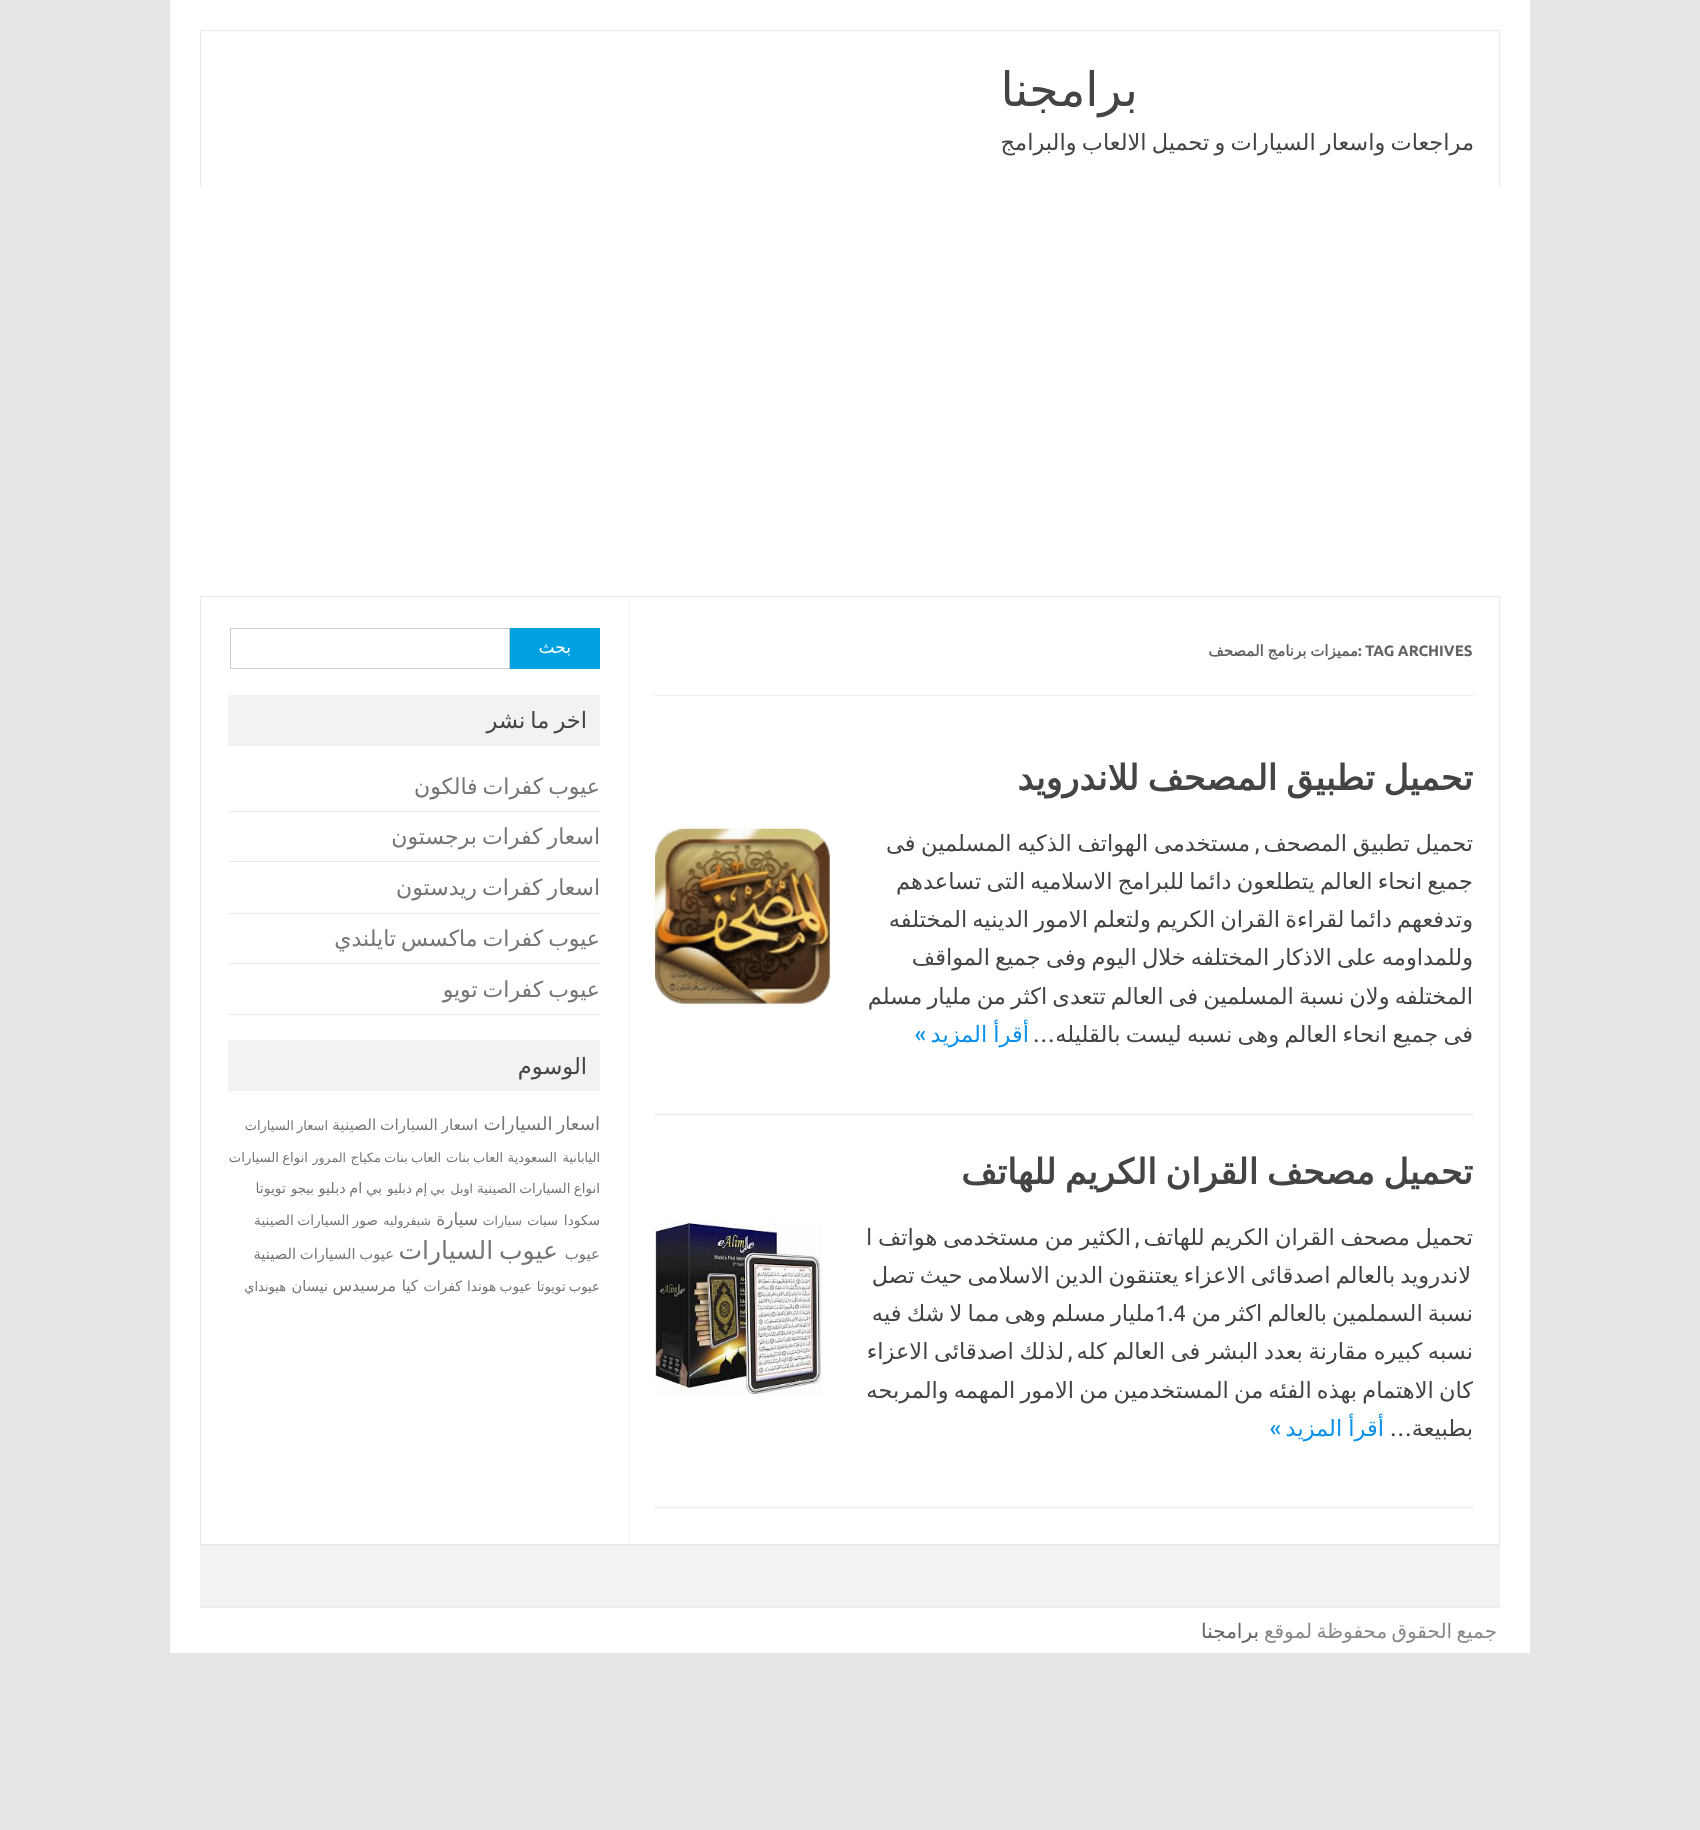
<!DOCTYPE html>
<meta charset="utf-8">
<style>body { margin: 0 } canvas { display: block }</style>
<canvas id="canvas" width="1700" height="1830"></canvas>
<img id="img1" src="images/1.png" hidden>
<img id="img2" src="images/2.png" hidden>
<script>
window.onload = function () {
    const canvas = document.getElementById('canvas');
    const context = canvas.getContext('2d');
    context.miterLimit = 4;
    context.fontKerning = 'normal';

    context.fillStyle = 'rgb(230, 230, 230)';
    context.fillRect(0, 0, 1700, 1830);
    context.fillStyle = 'rgb(255, 255, 255)';
    context.fillRect(170, 0, 1360, 1653);
    context.fillStyle = 'rgb(233, 233, 233)';
    context.fillRect(200, 30, 1300, 1);
    context.fillRect(1499, 30, 1, 156);
    context.fillRect(200, 30, 1, 156);
    context.strokeStyle = 'rgb(233, 233, 233)';
    context.strokeRect(200.5, 596.5, 1299, 948);
    context.fillStyle = 'rgb(241, 241, 241)';
    context.fillRect(629, 598, 1, 946);
    context.fillStyle = 'rgb(237, 237, 237)';
    context.fillRect(655, 695, 818, 1);
    context.fillStyle = 'rgb(243, 243, 243)';
    context.fillRect(655, 1113, 818, 3);
    context.drawImage(document.getElementById('img1'), 655, 828, 175, 176);
    context.fillRect(655, 1506, 818, 3);
    context.drawImage(document.getElementById('img2'), 655, 1222, 168, 174);
    context.fillStyle = 'rgb(0, 161, 224)';
    context.fillRect(510, 628, 90, 41);
    context.strokeStyle = 'rgb(204, 204, 204)';
    context.strokeRect(230.5, 628.5, 279, 40);
    context.fillStyle = 'rgb(242, 242, 242)';
    context.fillRect(228, 695, 372, 51);
    context.fillStyle = 'rgb(233, 233, 233)';
    context.fillRect(228, 811, 372, 1);
    context.fillRect(228, 861, 372, 1);
    context.fillRect(228, 913, 372, 1);
    context.fillRect(228, 963, 372, 1);
    context.fillRect(228, 1014, 372, 1);
    context.fillStyle = 'rgb(242, 242, 242)';
    context.fillRect(228, 1040, 372, 51);
    context.fillRect(200, 1546, 1300, 62);
    context.fillStyle = 'rgb(237, 237, 237)';
    context.fillRect(200, 1545, 1300, 1);
    context.fillStyle = 'rgb(233, 233, 233)';
    context.fillRect(200, 1606, 1300, 1);
    context.direction = 'rtl';
    context.font = '47.5px DejaVu Sans';
    context.fillStyle = 'rgb(68, 68, 68)';
    context.fillText('برامجنا', 1138, 106);
    context.wordSpacing = '-2px';
    context.font = '22.5px DejaVu Sans';
    context.fillText('مراجعات واسعار السيارات و تحميل الالعاب والبرامج', 1474, 150);
    context.wordSpacing = '0px';
    context.direction = 'ltr';
    context.font = 'bold 15px Ubuntu';
    context.fillStyle = 'rgb(99, 99, 99)';
    context.fillText(': TAG ARCHIVES', 1358, 656);
    context.wordSpacing = '-1px';
    context.direction = 'rtl';
    context.font = 'bold 15px DejaVu Sans';
    context.fillText('مميزات برنامج المصحف', 1358, 656);
    context.wordSpacing = '-2.5px';
    context.font = 'bold 35px DejaVu Sans';
    context.fillStyle = 'rgb(68, 68, 68)';
    context.fillText('تحميل تطبيق المصحف للاندرويد', 1473, 790);
    context.wordSpacing = '-1.5px';
    context.font = '22.5px DejaVu Sans';
    context.fillText('تحميل تطبيق المصحف', 1473, 851);
    context.fillText('مستخدمى الهواتف الذكيه المسلمين فى', 1250, 851);
    context.wordSpacing = '0px';
    context.font = '22.5px Ubuntu';
    context.fillText(',', 1260, 851);
    context.wordSpacing = '-2px';
    context.font = '22.5px DejaVu Sans';
    context.fillText('جميع انحاء العالم يتطلعون دائما للبرامج الاسلاميه التى تساعدهم', 1473, 889);
    context.fillText('وتدفعهم دائما لقراءة القران الكريم ولتعلم الامور الدينيه المختلفه', 1473, 927);
    context.fillText('وللمداومه على الاذكار المختلفه خلال اليوم وفى جميع المواقف', 1473, 965);
    context.fillText('المختلفه ولان نسبة المسلمين فى العالم تتعدى اكثر من مليار مسلم', 1473, 1004);
    context.wordSpacing = '-1.75px';
    context.fillText('فى جميع انحاء العالم وهى نسبه ليست بالقليله', 1473, 1042);
    context.wordSpacing = '0px';
    context.font = '22.5px Ubuntu';
    context.fillText('…', 1055, 1042);
    context.wordSpacing = '-1px';
    context.font = '22.5px DejaVu Sans';
    context.fillStyle = 'rgb(11, 145, 234)';
    context.fillText('أقرأ المزيد', 1029, 1042);
    context.wordSpacing = '0px';
    context.font = '22.5px Ubuntu';
    context.fillText('»', 926, 1042);
    context.wordSpacing = '-2.5px';
    context.font = 'bold 35px DejaVu Sans';
    context.fillStyle = 'rgb(68, 68, 68)';
    context.fillText('تحميل مصحف القران الكريم للهاتف', 1473, 1184);
    context.wordSpacing = '-1.5px';
    context.font = '22.5px DejaVu Sans';
    context.fillText('تحميل مصحف القران الكريم للهاتف', 1473, 1245);
    context.wordSpacing = '0px';
    context.font = '22.5px Ubuntu';
    context.fillText(',', 1140, 1245);
    context.wordSpacing = '-1.5px';
    context.font = '22.5px DejaVu Sans';
    context.fillText('الكثير من مستخدمى هواتف ا', 1131, 1245);
    context.wordSpacing = '-2px';
    context.fillText('لاندرويد بالعالم اصدقائى الاعزاء يعتنقون الدين الاسلامى حيث تصل', 1471, 1283);
    context.fillText('نسبة السملمين بالعالم اكثر من', 1473, 1321);
    context.fillText('مليار مسلم وهى مما لا شك فيه', 1155, 1321);
    context.wordSpacing = '0px';
    context.direction = 'ltr';
    context.font = '22.5px Ubuntu';
    context.fillText('1.4', 1155, 1321);
    context.wordSpacing = '-1.5px';
    context.direction = 'rtl';
    context.font = '22.5px DejaVu Sans';
    context.fillText('نسبه كبيره مقارنة بعدد البشر فى العالم كله', 1473, 1359);
    context.wordSpacing = '0px';
    context.font = '22.5px Ubuntu';
    context.fillText(',', 1073, 1359);
    context.wordSpacing = '-1.5px';
    context.font = '22.5px DejaVu Sans';
    context.fillText('لذلك اصدقائى الاعزاء', 1064, 1359);
    context.wordSpacing = '-2px';
    context.fillText('كان الاهتمام بهذه الفئه من المستخدمين من الامور المهمه والمربحه', 1473, 1398);
    context.wordSpacing = '0px';
    context.fillText('بطبيعة', 1473, 1436);
    context.font = '22.5px Ubuntu';
    context.fillText('…', 1412, 1436);
    context.wordSpacing = '-1px';
    context.font = '22.5px DejaVu Sans';
    context.fillStyle = 'rgb(11, 145, 234)';
    context.fillText('أقرأ المزيد', 1384, 1436);
    context.wordSpacing = '0px';
    context.font = '22.5px Ubuntu';
    context.fillText('»', 1281, 1436);
    context.font = '17px DejaVu Sans';
    context.fillStyle = 'rgb(255, 255, 255)';
    context.fillText('بحث', 571, 653);
    context.wordSpacing = '-2px';
    context.font = '22.5px DejaVu Sans';
    context.fillStyle = 'rgb(68, 68, 68)';
    context.fillText('اخر ما نشر', 587, 728);
    context.font = '22px DejaVu Sans';
    context.fillStyle = 'rgb(117, 117, 117)';
    context.fillText('عيوب كفرات فالكون', 600, 794);
    context.fillText('اسعار كفرات برجستون', 600, 844);
    context.fillText('اسعار كفرات ريدستون', 600, 895);
    context.fillText('عيوب كفرات ماكسس تايلندي', 600, 946);
    context.fillText('عيوب كفرات تويو', 600, 997);
    context.wordSpacing = '0px';
    context.font = '22.5px DejaVu Sans';
    context.fillStyle = 'rgb(68, 68, 68)';
    context.fillText('الوسوم', 587, 1074);
    context.wordSpacing = '-2px';
    context.font = '18.25px DejaVu Sans';
    context.fillStyle = 'rgb(117, 117, 117)';
    context.fillText('اسعار السيارات', 600, 1130);
    context.wordSpacing = '-1px';
    context.font = '15.25px DejaVu Sans';
    context.fillText('اسعار السيارات الصينية', 478, 1130);
    context.font = '13px DejaVu Sans';
    context.fillText('اسعار السيارات', 328, 1130);
    context.wordSpacing = '0px';
    context.fillText('اليابانية', 600, 1162);
    context.font = '13.25px DejaVu Sans';
    context.fillText('السعودية', 557, 1162);
    context.wordSpacing = '-1px';
    context.font = '13px DejaVu Sans';
    context.fillText('العاب بنات', 503, 1162);
    context.fillText('العاب بنات مكياج', 441, 1162);
    context.wordSpacing = '0px';
    context.font = '12.5px DejaVu Sans';
    context.fillText('المرور', 346, 1162);
    context.wordSpacing = '-1px';
    context.font = '13.25px DejaVu Sans';
    context.fillText('انواع السيارات', 308, 1162);
    context.font = '13.5px DejaVu Sans';
    context.fillText('انواع السيارات الصينية', 600, 1193);
    context.wordSpacing = '0px';
    context.font = '12.5px DejaVu Sans';
    context.fillText('اوبل', 473, 1193);
    context.wordSpacing = '-1px';
    context.font = '13.25px DejaVu Sans';
    context.fillText('بي إم دبليو', 445, 1193);
    context.font = '14.5px DejaVu Sans';
    context.fillText('بي ام دبليو', 382, 1193);
    context.wordSpacing = '0px';
    context.font = '13.25px DejaVu Sans';
    context.fillText('بيجو', 314, 1193);
    context.font = '14px DejaVu Sans';
    context.fillText('تويوتا', 286, 1193);
    context.font = '13.75px DejaVu Sans';
    context.fillText('سكودا', 600, 1225);
    context.font = '13px DejaVu Sans';
    context.fillText('سيات', 558, 1225);
    context.font = '12.5px DejaVu Sans';
    context.fillText('سيارات', 522, 1225);
    context.font = '17px DejaVu Sans';
    context.fillText('سيارة', 478, 1225);
    context.font = '12.5px DejaVu Sans';
    context.fillText('شيفروليه', 431, 1225);
    context.wordSpacing = '-1px';
    context.font = '13.75px DejaVu Sans';
    context.fillText('صور السيارات الصينية', 378, 1225);
    context.wordSpacing = '0px';
    context.font = '15px DejaVu Sans';
    context.fillText('عيوب', 600, 1259);
    context.wordSpacing = '-2px';
    context.font = '25px DejaVu Sans';
    context.fillText('عيوب السيارات', 558, 1259);
    context.wordSpacing = '-1px';
    context.font = '14.75px DejaVu Sans';
    context.fillText('عيوب السيارات الصينية', 394, 1259);
    context.font = '13.25px DejaVu Sans';
    context.fillText('عيوب تويوتا', 600, 1291);
    context.font = '13.75px DejaVu Sans';
    context.fillText('عيوب هوندا', 532, 1291);
    context.wordSpacing = '0px';
    context.font = '14px DejaVu Sans';
    context.fillText('كفرات', 462, 1291);
    context.font = '15px DejaVu Sans';
    context.fillText('كيا', 418, 1291);
    context.font = '16px DejaVu Sans';
    context.fillText('مرسيدس', 396, 1291);
    context.font = '14.5px DejaVu Sans';
    context.fillText('نيسان', 328, 1291);
    context.font = '13px DejaVu Sans';
    context.fillText('هيونداي', 286, 1291);
    context.wordSpacing = '-2px';
    context.font = '20px DejaVu Sans';
    context.fillStyle = 'rgb(136, 136, 136)';
    context.fillText('جميع الحقوق محفوظة لموقع', 1497, 1638);
    context.wordSpacing = '0px';
    context.fillStyle = 'rgb(99, 99, 99)';
    context.fillText('برامجنا', 1259, 1638);
};
</script>
